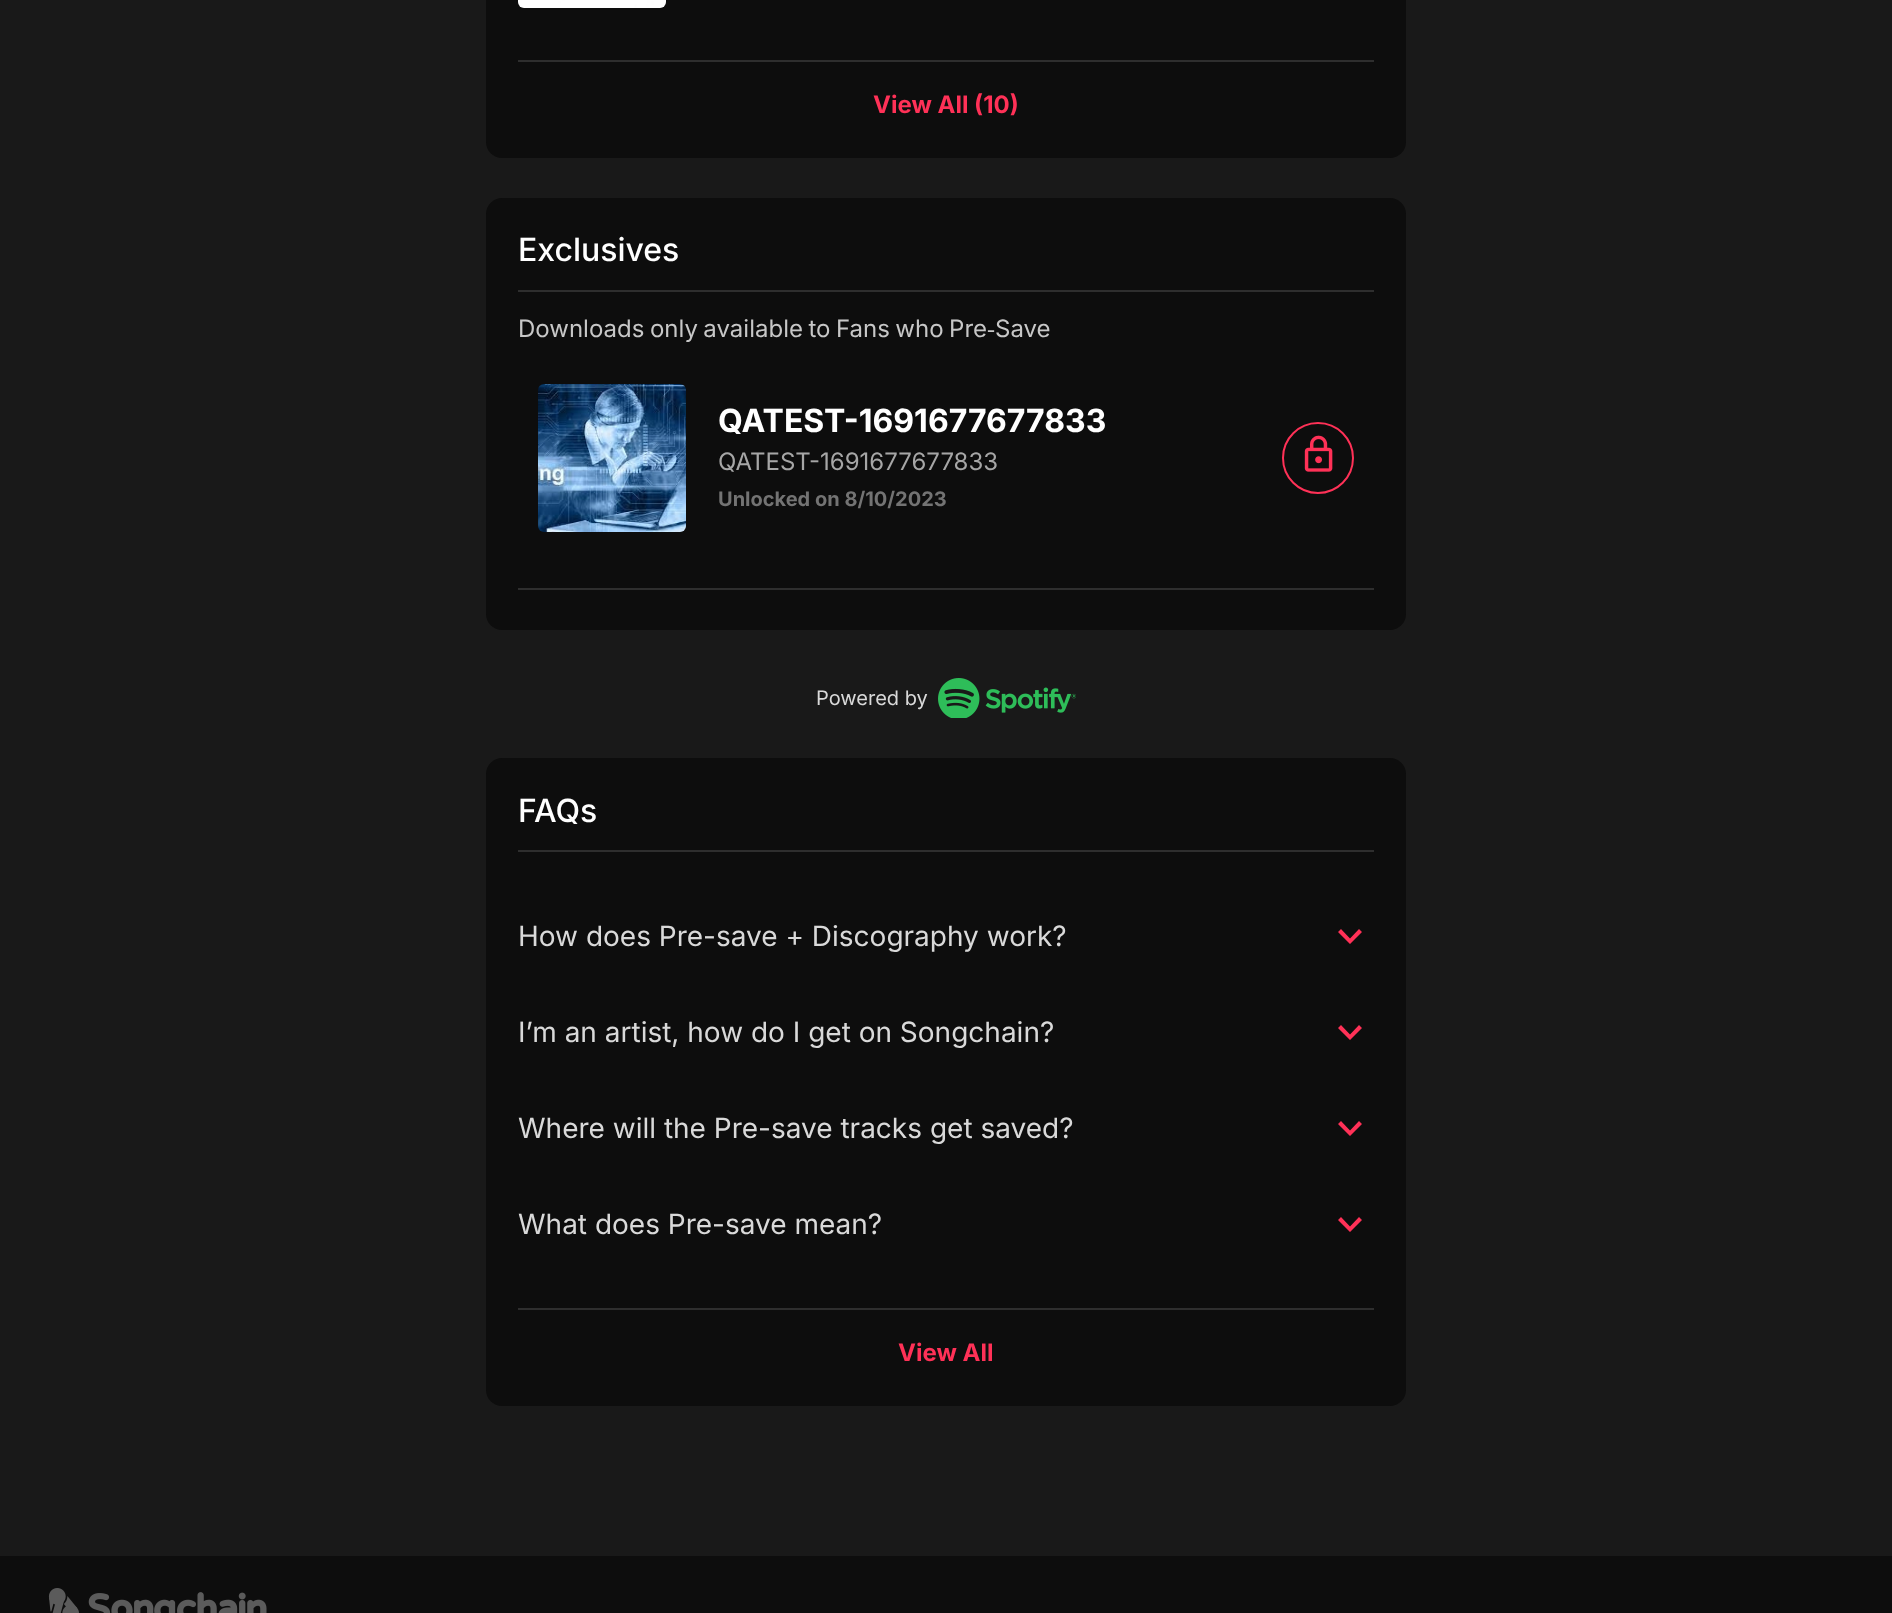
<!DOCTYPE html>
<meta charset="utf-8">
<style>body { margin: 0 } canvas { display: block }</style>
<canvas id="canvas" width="1892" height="1613"></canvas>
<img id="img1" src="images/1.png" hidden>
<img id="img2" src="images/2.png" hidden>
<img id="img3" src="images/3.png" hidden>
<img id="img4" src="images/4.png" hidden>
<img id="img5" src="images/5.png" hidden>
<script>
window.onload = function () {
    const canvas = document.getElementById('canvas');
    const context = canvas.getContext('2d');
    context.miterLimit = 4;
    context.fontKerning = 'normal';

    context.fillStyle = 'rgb(25, 25, 25)';
    context.fillRect(0, 0, 1892, 1613);
    context.fillStyle = 'rgb(13, 13, 13)';
    context.beginPath();
    context.roundRect(486, -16, 920, 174, 16);
    context.fill();
    context.drawImage(document.getElementById('img1'), 518, 0, 148, 8);
    context.fillStyle = 'rgb(46, 46, 46)';
    context.fillRect(518, 60, 856, 2);
    context.fillStyle = 'rgb(13, 13, 13)';
    context.beginPath();
    context.roundRect(486, 198, 920, 432, 16);
    context.fill();
    context.fillStyle = 'rgb(46, 46, 46)';
    context.fillRect(518, 290, 856, 2);
    context.drawImage(document.getElementById('img2'), 538, 384, 148, 148);
    context.beginPath();
    context.arc(1318, 458, 35, 0, 2 * Math.PI);
    context.strokeStyle = 'rgb(255, 49, 87)';
    context.lineWidth = 2;
    context.stroke();
    context.drawImage(document.getElementById('img3'), 1304, 435, 29, 37);
    context.fillRect(518, 588, 856, 2);
    context.drawImage(document.getElementById('img4'), 938, 678, 138, 40);
    context.fillStyle = 'rgb(13, 13, 13)';
    context.beginPath();
    context.roundRect(486, 758, 920, 648, 16);
    context.fill();
    context.fillStyle = 'rgb(46, 46, 46)';
    context.fillRect(518, 850, 856, 2);
    context.fillStyle = 'rgb(255, 49, 87)';
    context.beginPath();
    context.moveTo(1341, 929);
    context.lineTo(1350, 938.5);
    context.lineTo(1359, 929);
    context.lineTo(1362, 932);
    context.lineTo(1350, 944);
    context.lineTo(1338, 932);
    context.closePath();
    context.fill();
    context.beginPath();
    context.moveTo(1341, 1025);
    context.lineTo(1350, 1034.5);
    context.lineTo(1359, 1025);
    context.lineTo(1362, 1028);
    context.lineTo(1350, 1040);
    context.lineTo(1338, 1028);
    context.closePath();
    context.fill();
    context.beginPath();
    context.moveTo(1341, 1121);
    context.lineTo(1350, 1130.5);
    context.lineTo(1359, 1121);
    context.lineTo(1362, 1124);
    context.lineTo(1350, 1136);
    context.lineTo(1338, 1124);
    context.closePath();
    context.fill();
    context.beginPath();
    context.moveTo(1341, 1217);
    context.lineTo(1350, 1226.5);
    context.lineTo(1359, 1217);
    context.lineTo(1362, 1220);
    context.lineTo(1350, 1232);
    context.lineTo(1338, 1220);
    context.closePath();
    context.fill();
    context.fillStyle = 'rgb(46, 46, 46)';
    context.fillRect(518, 1308, 856, 2);
    context.fillStyle = 'rgb(13, 13, 13)';
    context.fillRect(0, 1556, 1892, 57);
    context.drawImage(document.getElementById('img5'), 48, 1588, 219, 25);
    context.font = 'bold 24px Inter';
    context.fillStyle = 'rgb(255, 49, 87)';
    context.fillText('View All (10)', 873, 113);
    context.font = '500 32px Inter';
    context.fillStyle = 'rgb(255, 255, 255)';
    context.fillText('Exclusives', 518, 261);
    context.wordSpacing = '-1.25px';
    context.font = '24px Inter';
    context.fillStyle = 'rgb(199, 199, 199)';
    context.fillText('Downloads only available to Fans who Pre‑Save', 518, 337);
    context.wordSpacing = '0px';
    context.font = 'bold 32px Inter';
    context.fillStyle = 'rgb(255, 255, 255)';
    context.fillText('QATEST-1691677677833', 718, 432);
    context.font = '24px Inter';
    context.fillStyle = 'rgb(166, 166, 166)';
    context.fillText('QATEST-1691677677833', 718, 470);
    context.font = 'bold 20px Inter';
    context.fillStyle = 'rgb(115, 115, 115)';
    context.fillText('Unlocked on 8/10/2023', 718, 506);
    context.font = '20px Inter';
    context.fillStyle = 'rgb(217, 217, 217)';
    context.fillText('Powered by', 816, 705);
    context.font = '500 32px Inter';
    context.fillStyle = 'rgb(255, 255, 255)';
    context.fillText('FAQs', 518, 822);
    context.font = '28px Inter';
    context.fillStyle = 'rgb(217, 217, 217)';
    context.fillText('How does Pre-save + Discography work?', 518, 946);
    context.fillText('I’m an artist, how do I get on Songchain?', 518, 1042);
    context.fillText('Where will the Pre-save tracks get saved?', 518, 1138);
    context.fillText('What does Pre-save mean?', 518, 1234);
    context.font = 'bold 24px Inter';
    context.fillStyle = 'rgb(255, 49, 87)';
    context.fillText('View All', 898, 1361);
};
</script>
